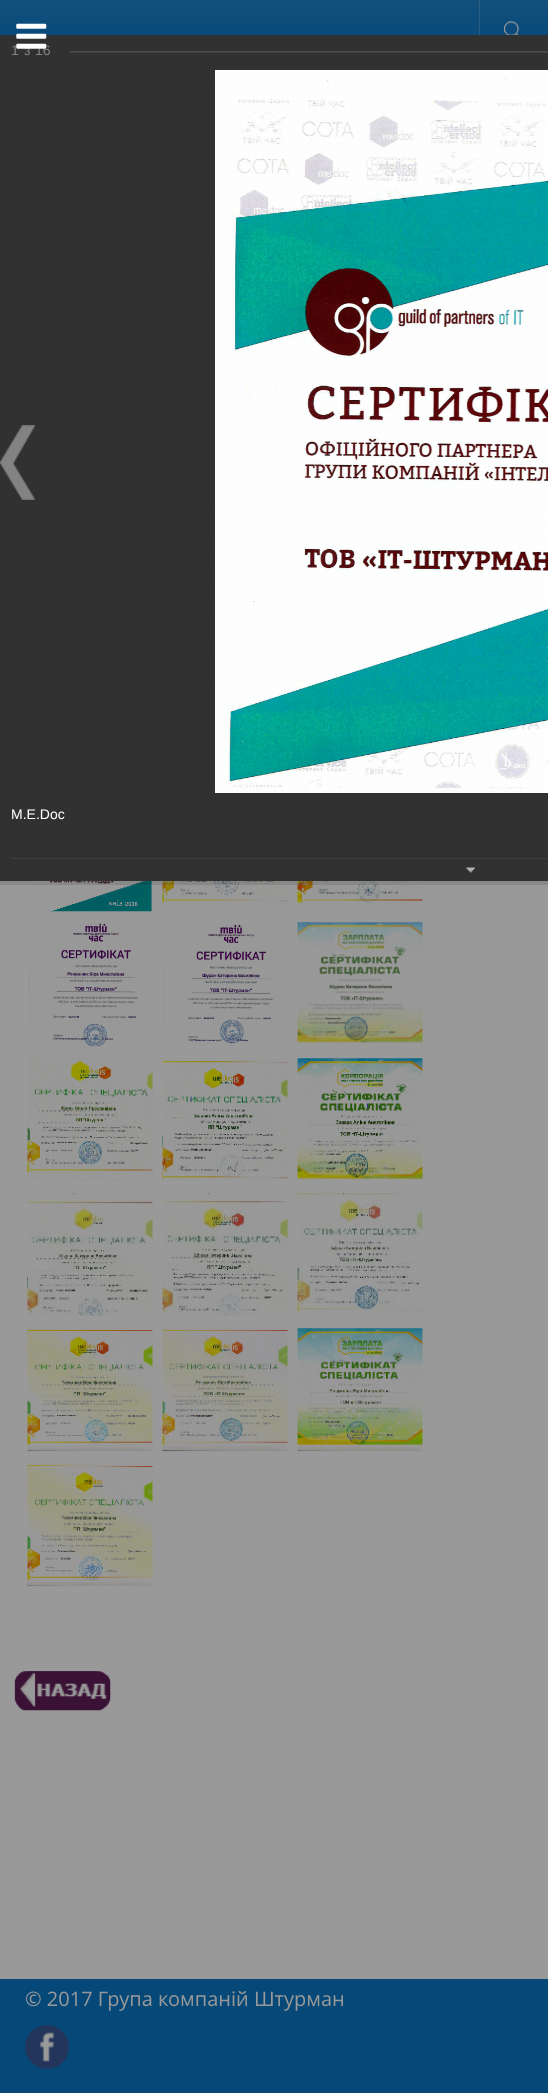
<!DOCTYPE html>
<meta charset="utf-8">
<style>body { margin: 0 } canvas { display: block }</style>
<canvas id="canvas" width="548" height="2093"></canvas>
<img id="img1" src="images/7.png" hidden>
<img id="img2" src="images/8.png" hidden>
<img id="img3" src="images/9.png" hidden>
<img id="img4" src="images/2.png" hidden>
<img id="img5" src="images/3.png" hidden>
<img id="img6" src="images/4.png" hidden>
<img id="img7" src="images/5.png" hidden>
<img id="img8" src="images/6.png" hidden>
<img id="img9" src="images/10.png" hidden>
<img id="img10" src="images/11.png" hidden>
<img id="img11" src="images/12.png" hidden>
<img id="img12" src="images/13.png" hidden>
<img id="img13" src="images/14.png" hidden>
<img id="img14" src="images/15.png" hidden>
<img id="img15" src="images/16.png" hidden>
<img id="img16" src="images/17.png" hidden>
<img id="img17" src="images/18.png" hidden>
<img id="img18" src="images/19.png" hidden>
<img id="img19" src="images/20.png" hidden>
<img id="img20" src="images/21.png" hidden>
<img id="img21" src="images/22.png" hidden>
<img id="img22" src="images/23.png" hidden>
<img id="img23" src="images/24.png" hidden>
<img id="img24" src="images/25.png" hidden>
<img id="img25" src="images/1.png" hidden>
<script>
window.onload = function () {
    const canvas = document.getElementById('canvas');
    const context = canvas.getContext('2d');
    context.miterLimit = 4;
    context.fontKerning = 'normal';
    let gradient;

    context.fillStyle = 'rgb(153, 153, 153)';
    context.fillRect(0, 0, 548, 2093);
    context.drawImage(document.getElementById('img1'), 30, 881, 122, 31);
    context.drawImage(document.getElementById('img2'), 162, 881, 126, 26);
    context.drawImage(document.getElementById('img3'), 297, 881, 126, 30);
    context.fillStyle = 'rgba(0, 0, 0, 0.1)';
    context.fillRect(0, 881, 548, 4);
    context.fillStyle = 'rgb(49, 49, 49)';
    context.fillRect(0, 35, 548, 846);
    context.drawImage(document.getElementById('img4'), 70, 51, 478, 2);
    context.drawImage(document.getElementById('img5'), 215, 70, 333, 723);
    context.fillStyle = 'rgb(61, 61, 61)';
    context.fillRect(11, 858, 537, 1);
    context.drawImage(document.getElementById('img6'), 466, 867, 9, 6);
    context.drawImage(document.getElementById('img7'), 0, 425, 35, 75);
    gradient = context.createLinearGradient(274, 0, 274, 63);
    gradient.addColorStop(0, 'rgb(19, 80, 125)');
    gradient.addColorStop(1, 'rgb(0, 70, 121)');
    context.fillStyle = gradient;
    context.fillRect(0, 0, 548, 35);
    gradient = context.createLinearGradient(274, 0, 274, 63);
    gradient.addColorStop(0, 'rgb(46, 95, 130)');
    gradient.addColorStop(1, 'rgb(31, 87, 128)');
    context.fillStyle = gradient;
    context.fillRect(479, 0, 1, 35);
    context.drawImage(document.getElementById('img8'), 504, 21, 15, 14);
    context.drawImage(document.getElementById('img9'), 28, 922, 124, 125);
    context.drawImage(document.getElementById('img10'), 163, 924, 122, 122);
    context.drawImage(document.getElementById('img11'), 297, 922, 126, 123);
    context.drawImage(document.getElementById('img12'), 27, 1057, 126, 124);
    context.drawImage(document.getElementById('img13'), 162, 1058, 126, 123);
    context.drawImage(document.getElementById('img14'), 297, 1058, 126, 122);
    context.drawImage(document.getElementById('img15'), 27, 1191, 126, 125);
    context.drawImage(document.getElementById('img16'), 162, 1192, 126, 124);
    context.drawImage(document.getElementById('img17'), 297, 1192, 126, 124);
    context.drawImage(document.getElementById('img18'), 27, 1328, 126, 124);
    context.drawImage(document.getElementById('img19'), 162, 1328, 126, 124);
    context.drawImage(document.getElementById('img20'), 297, 1328, 126, 124);
    context.drawImage(document.getElementById('img21'), 27, 1463, 126, 124);
    context.drawImage(document.getElementById('img22'), 14, 1671, 97, 40);
    context.drawImage(document.getElementById('img23'), 14, 1671, 97, 40);
    context.fillStyle = 'rgb(6, 73, 121)';
    context.fillRect(0, 1979, 548, 114);
    context.drawImage(document.getElementById('img24'), 25, 2025, 44, 44);
    context.font = '14px Liberation Sans';
    context.fillStyle = 'rgb(131, 131, 131)';
    context.fillText('1', 11, 55);
    context.fillText('з', 24, 55);
    context.fillText('16', 35, 55);
    context.drawImage(document.getElementById('img25'), 16, 23, 31, 26);
    context.fillStyle = 'rgb(255, 255, 255)';
    context.fillText('M.E.Doc', 11, 819);
    context.font = '20px Open Sans';
    context.fillStyle = 'rgb(153, 153, 153)';
    context.fillText('© 2017 Група компаній Штурман', 25, 2006);
};
</script>
